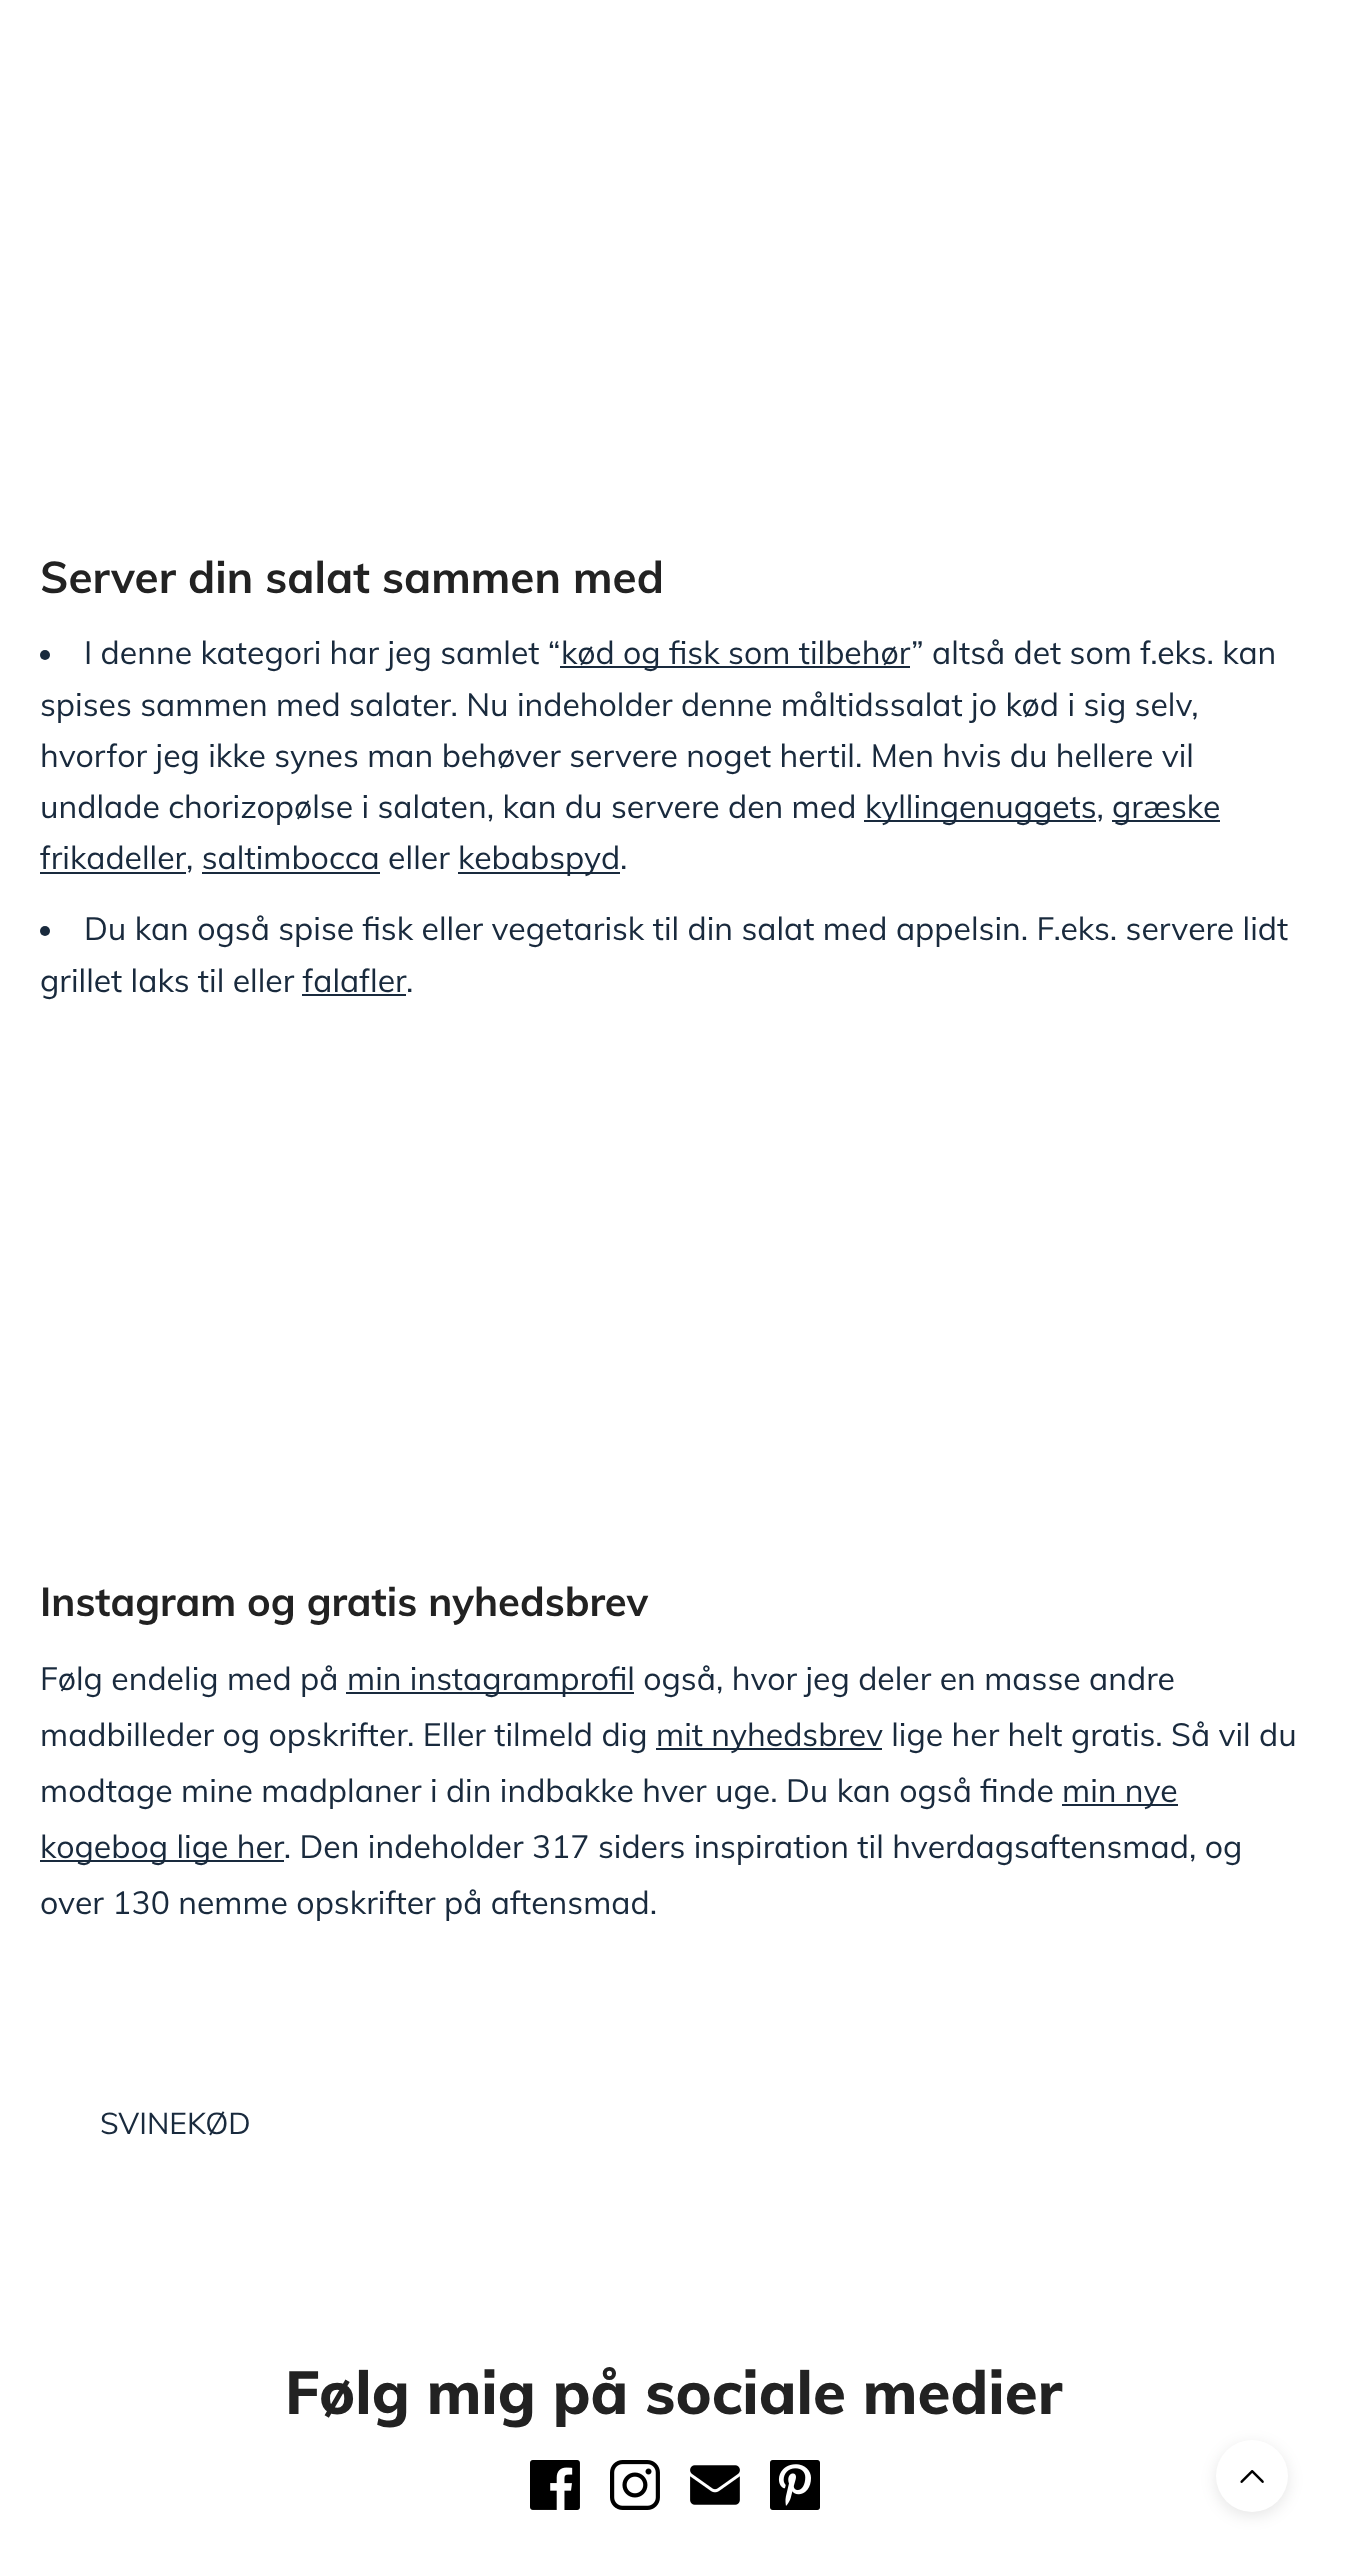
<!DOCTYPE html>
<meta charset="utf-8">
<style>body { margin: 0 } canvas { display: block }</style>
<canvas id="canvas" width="1347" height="2571"></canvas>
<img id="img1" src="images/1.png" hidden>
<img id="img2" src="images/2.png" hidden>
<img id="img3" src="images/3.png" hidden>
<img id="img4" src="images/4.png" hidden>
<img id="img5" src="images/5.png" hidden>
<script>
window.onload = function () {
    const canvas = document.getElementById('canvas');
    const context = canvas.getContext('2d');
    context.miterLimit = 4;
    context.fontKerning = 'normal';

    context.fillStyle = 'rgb(255, 255, 255)';
    context.fillRect(0, 0, 1347, 2571);
    context.fillStyle = 'rgb(25, 42, 61)';
    context.beginPath();
    context.arc(45, 655, 5, 0, 2 * Math.PI);
    context.fill();
    context.fillRect(560, 666, 350, 2);
    context.fillRect(864, 820, 232, 2);
    context.fillRect(1112, 820, 108, 2);
    context.fillRect(40, 872, 146, 2);
    context.fillRect(458, 872, 162, 2);
    context.fillRect(202, 872, 178, 2);
    context.beginPath();
    context.arc(45, 931, 5, 0, 2 * Math.PI);
    context.fill();
    context.fillRect(302, 994, 104, 2);
    context.fillRect(346, 1692, 288, 2);
    context.fillRect(656, 1748, 226, 2);
    context.fillRect(1062, 1804, 116, 2);
    context.fillRect(40, 1860, 244, 2);
    context.drawImage(document.getElementById('img1'), 530, 2460, 50, 50);
    context.drawImage(document.getElementById('img2'), 610, 2460, 50, 50);
    context.drawImage(document.getElementById('img3'), 690, 2465, 50, 40);
    context.drawImage(document.getElementById('img4'), 770, 2460, 50, 50);
    context.fillStyle = 'rgba(0, 0, 0, 0.1)';
    context.filter = 'blur(8px)';
    context.beginPath();
    context.roundRect(1216, 2444, 72, 72, 36);
    context.fill();
    context.filter = 'none';
    context.fillStyle = 'rgb(255, 255, 255)';
    context.beginPath();
    context.arc(1252, 2476, 36, 0, 2 * Math.PI);
    context.fill();
    context.drawImage(document.getElementById('img5'), 1240, 2470, 24, 13);
    context.font = 'bold 44px Muli';
    context.fillStyle = 'rgb(34, 34, 34)';
    context.fillText('Server din salat sammen med', 40, 593);
    context.font = '32px Muli';
    context.fillStyle = 'rgb(25, 42, 61)';
    context.fillText('I denne kategori har jeg samlet “', 84, 664);
    context.fillText('kød og fisk som tilbehør', 561, 664);
    context.fillText('” altså det som f.eks. kan', 911, 664);
    context.fillText('spises sammen med salater. Nu indeholder denne måltidssalat jo kød i sig selv,', 40, 716);
    context.fillText('hvorfor jeg ikke synes man behøver servere noget hertil. Men hvis du hellere vil', 40, 767);
    context.fillText('undlade chorizopølse i salaten, kan du servere den med', 40, 818);
    context.fillText('kyllingenuggets,', 865, 818);
    context.fillText('græske', 1112, 818);
    context.fillText('frikadeller', 40, 869);
    context.fillText(', saltimbocca eller', 186, 869);
    context.fillText('kebabspyd.', 458, 869);
    context.fillText('Du kan også spise fisk eller vegetarisk til din salat med appelsin. F.eks. servere lidt', 84, 940);
    context.fillText('grillet laks til eller falafler', 40, 992);
    context.fillText('.', 406, 992);
    context.font = 'bold 40px Muli';
    context.fillStyle = 'rgb(34, 34, 34)';
    context.fillText('Instagram og gratis nyhedsbrev', 40, 1616);
    context.font = '32px Muli';
    context.fillStyle = 'rgb(25, 42, 61)';
    context.fillText('Følg endelig med på', 40, 1690);
    context.fillText('min instagramprofil også, hvor jeg deler en masse andre', 347, 1690);
    context.fillText('madbilleder og opskrifter. Eller tilmeld dig', 40, 1746);
    context.fillText('mit nyhedsbrev lige her helt gratis. Så vil du', 656, 1746);
    context.fillText('modtage mine madplaner i din indbakke hver uge. Du kan også finde', 40, 1802);
    context.fillText('min nye', 1062, 1802);
    context.fillText('kogebog lige her. Den indeholder 317 siders inspiration til hverdagsaftensmad, og', 40, 1858);
    context.fillText('over 130 nemme opskrifter på aftensmad.', 40, 1914);
    context.font = '30px Muli';
    context.fillText('SVINEKØD', 100, 2134);
    context.font = '800 60px Muli';
    context.fillStyle = 'rgb(34, 34, 34)';
    context.fillText('Følg mig på sociale medier', 285, 2414);
};
</script>
